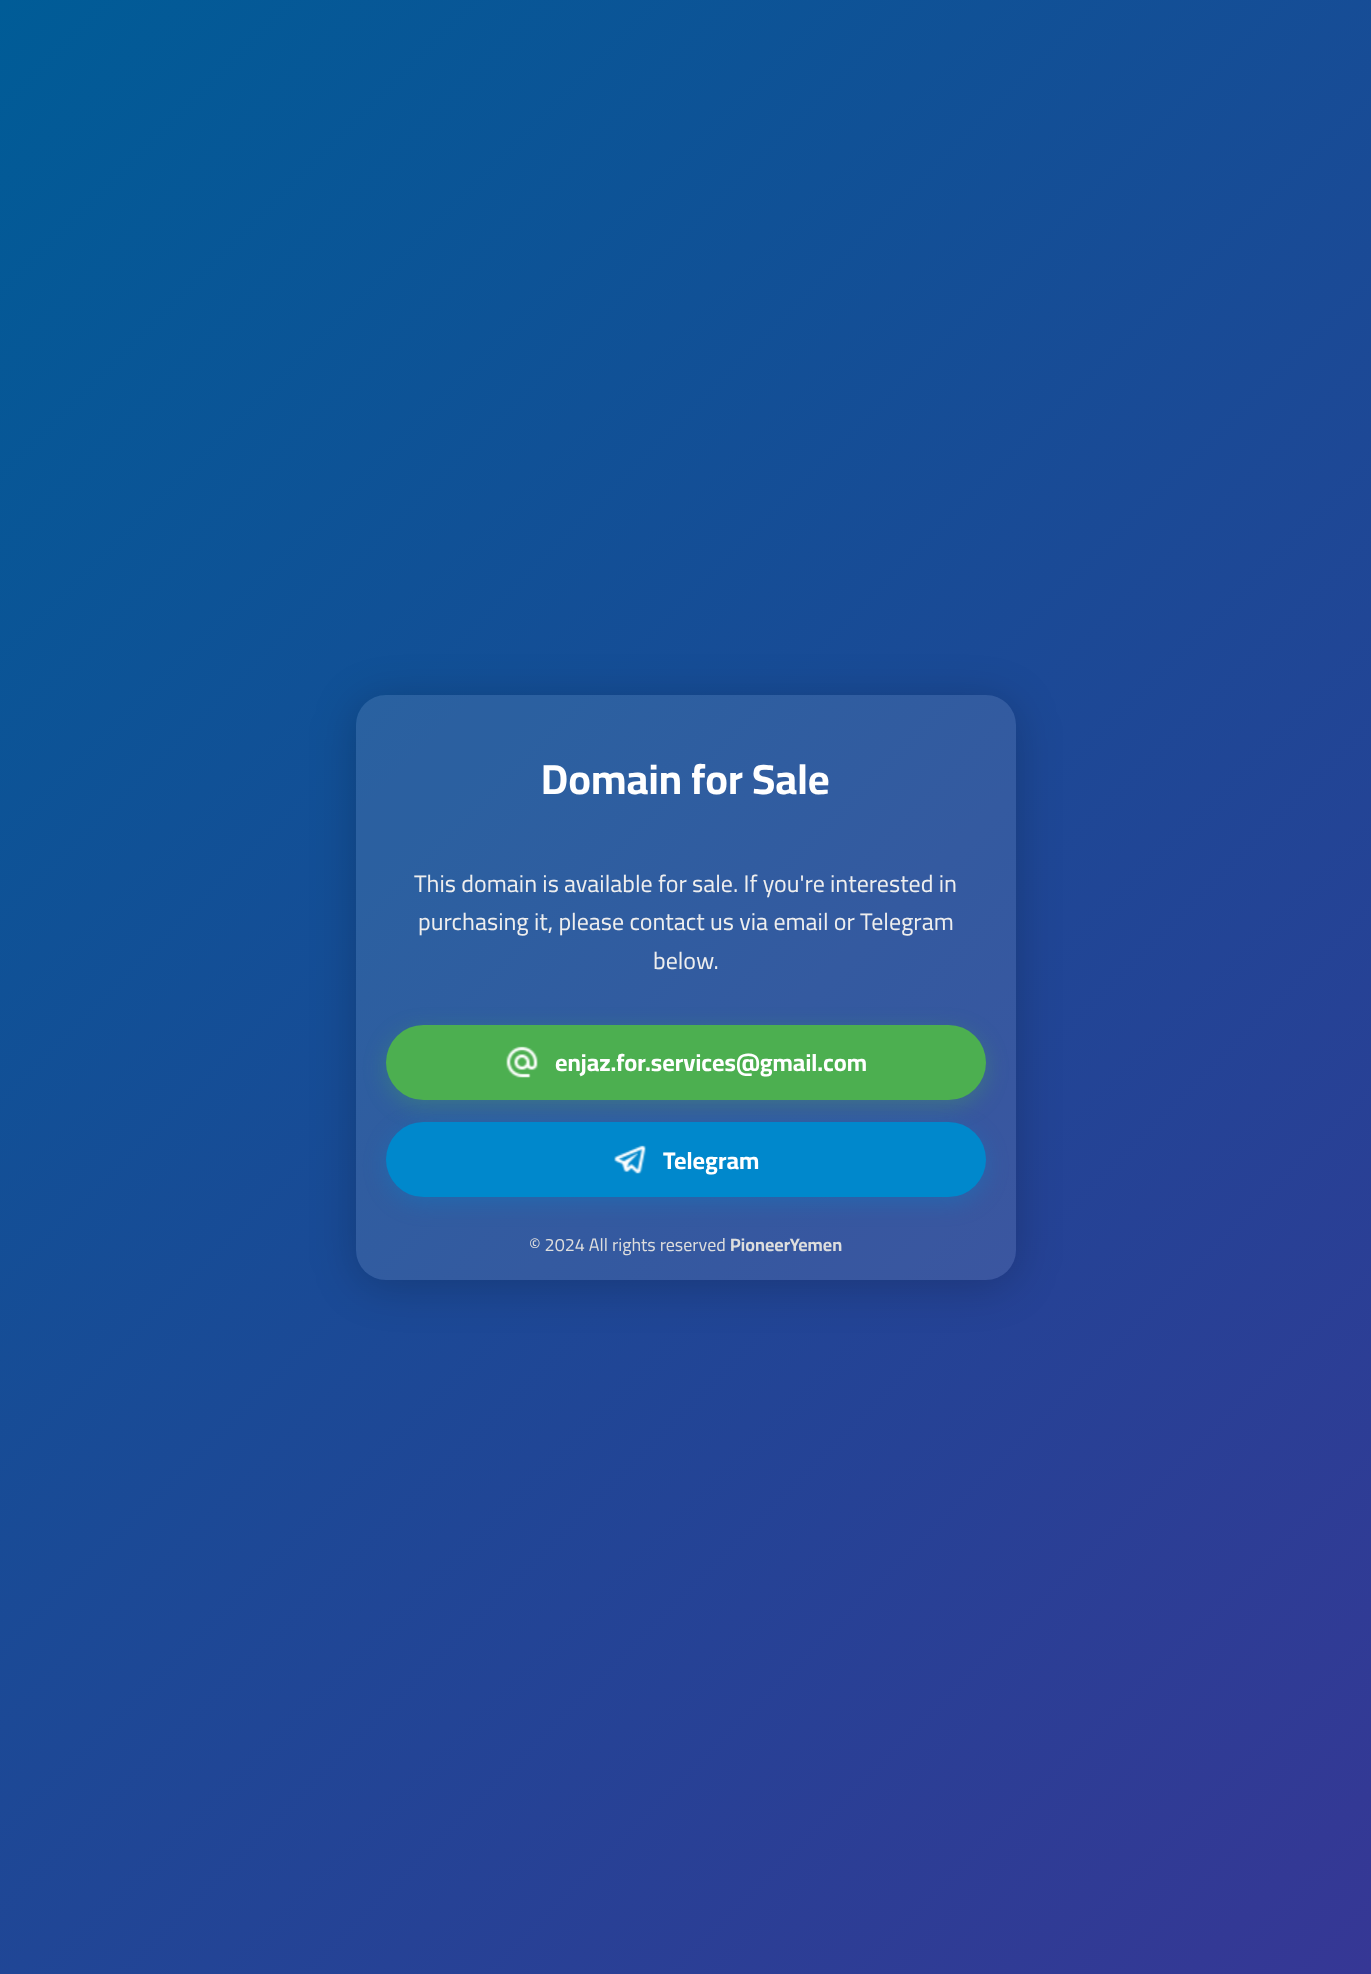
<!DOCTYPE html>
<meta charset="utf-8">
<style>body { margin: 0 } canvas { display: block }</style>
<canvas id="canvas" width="1371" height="1974"></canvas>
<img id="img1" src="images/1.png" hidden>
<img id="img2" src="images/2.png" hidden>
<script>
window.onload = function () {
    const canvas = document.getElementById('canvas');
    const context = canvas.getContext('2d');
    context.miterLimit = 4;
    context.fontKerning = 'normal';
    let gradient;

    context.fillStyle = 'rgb(255, 255, 255)';
    context.fillRect(0, 0, 1371, 1974);
    gradient = context.createLinearGradient(-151, 151, 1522, 1823);
    gradient.addColorStop(0, 'rgb(0, 92, 151)');
    gradient.addColorStop(1, 'rgb(54, 55, 149)');
    context.fillStyle = gradient;
    context.fillRect(0, 0, 1371, 1974);
    context.save();
    context.beginPath();
    context.moveTo(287, 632);
    context.lineTo(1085, 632);
    context.lineTo(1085, 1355);
    context.lineTo(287, 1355);
    context.closePath();
    context.moveTo(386, 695);
    context.lineTo(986, 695);
    context.bezierCurveTo(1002.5, 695, 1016, 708.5, 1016, 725);
    context.lineTo(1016, 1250);
    context.bezierCurveTo(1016, 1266.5, 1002.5, 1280, 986, 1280);
    context.lineTo(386, 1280);
    context.bezierCurveTo(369.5, 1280, 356, 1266.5, 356, 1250);
    context.lineTo(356, 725);
    context.bezierCurveTo(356, 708.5, 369.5, 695, 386, 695);
    context.closePath();
    context.clip('evenodd');
    context.fillStyle = 'rgba(0, 0, 0, 0.2)';
    context.filter = 'blur(22.5px)';
    context.beginPath();
    context.roundRect(356, 701, 660, 585, 30);
    context.fill();
    context.filter = 'none';
    context.restore();
    context.fillStyle = 'rgba(255, 255, 255, 0.1)';
    context.beginPath();
    context.roundRect(356, 695, 660, 585, 30);
    context.fill();
    context.fillStyle = 'rgba(76, 175, 80, 0.3)';
    context.filter = 'blur(11px)';
    context.beginPath();
    context.roundRect(386, 1031, 600, 75, 37.5);
    context.fill();
    context.filter = 'none';
    context.fillStyle = 'rgb(76, 175, 80)';
    context.beginPath();
    context.roundRect(386, 1025, 600, 75, 37.5);
    context.fill();
    context.drawImage(document.getElementById('img1'), 506, 1046, 32, 32);
    context.fillStyle = 'rgba(0, 136, 204, 0.3)';
    context.filter = 'blur(11px)';
    context.beginPath();
    context.roundRect(386, 1128, 600, 75, 37.5);
    context.fill();
    context.filter = 'none';
    context.fillStyle = 'rgb(0, 136, 204)';
    context.beginPath();
    context.roundRect(386, 1122, 600, 75, 37.5);
    context.fill();
    context.drawImage(document.getElementById('img2'), 614, 1145, 32, 29);
    context.font = 'bold 42px Cairo';
    context.fillStyle = 'rgb(255, 255, 255)';
    context.fillText('Domain for Sale', 541, 794);
    context.font = '24px Cairo';
    context.fillStyle = 'rgb(238, 238, 238)';
    context.fillText('This domain is available for sale. If you\'re interested in', 414, 892);
    context.fillText('purchasing it, please contact us via email or Telegram', 418, 930);
    context.fillText('below.', 653, 969);
    context.font = 'bold 24px Cairo';
    context.fillStyle = 'rgb(255, 255, 255)';
    context.fillText('enjaz.for.services@gmail.com', 555, 1071);
    context.fillText('Telegram', 663, 1169);
    context.font = '18px Cairo';
    context.fillStyle = 'rgb(221, 221, 221)';
    context.fillText('© 2024 All rights reserved', 529, 1251);
    context.font = 'bold 18px Cairo';
    context.fillText('PioneerYemen', 730, 1251);
};
</script>
